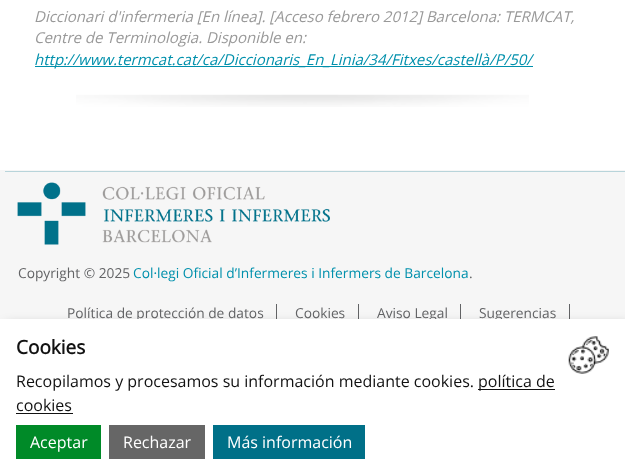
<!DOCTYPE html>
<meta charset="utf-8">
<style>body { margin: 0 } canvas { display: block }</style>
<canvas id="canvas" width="625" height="475"></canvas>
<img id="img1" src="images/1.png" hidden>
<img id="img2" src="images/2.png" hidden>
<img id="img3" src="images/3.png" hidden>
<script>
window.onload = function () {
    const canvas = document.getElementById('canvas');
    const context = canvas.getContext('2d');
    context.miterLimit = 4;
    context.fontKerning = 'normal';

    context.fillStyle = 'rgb(255, 255, 255)';
    context.fillRect(0, 0, 625, 475);
    context.fillStyle = 'rgb(0, 144, 172)';
    context.fillRect(35, 66, 498, 1);
    context.drawImage(document.getElementById('img1'), 76, 94, 453, 13);
    context.fillStyle = 'rgb(246, 246, 246)';
    context.fillRect(0, 170, 625, 149);
    context.fillStyle = 'rgb(184, 212, 218)';
    context.fillRect(5, 171, 620, 1);
    context.drawImage(document.getElementById('img2'), 17, 182, 313, 63);
    context.fillStyle = 'rgb(99, 100, 102)';
    context.fillRect(276, 304, 1, 19);
    context.fillRect(358, 304, 1, 19);
    context.fillRect(460, 304, 1, 19);
    context.fillRect(569, 304, 1, 19);
    context.fillStyle = 'rgba(0, 0, 0, 0.3)';
    context.filter = 'blur(6px)';
    context.beginPath();
    context.rect(6, 325, 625, 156);
    context.fill();
    context.filter = 'none';
    context.font = 'italic 15px Open Sans';
    context.fillStyle = 'rgb(153, 153, 153)';
    context.fillText('Diccionari d\'infermeria [En línea]. [Acceso febrero 2012] Barcelona: TERMCAT,', 34, 22);
    context.fillText('Centre de Terminologia. Disponible en:', 34, 43);
    context.fillStyle = 'rgb(0, 144, 172)';
    context.fillText('http://www.termcat.cat/ca/Diccionaris_En_Linia/34/Fitxes/castellà/P/50/', 34, 65);
    context.font = '13.75px Open Sans';
    context.fillStyle = 'rgb(99, 100, 102)';
    context.fillText('Copyright © 2025', 18, 278);
    context.fillStyle = 'rgb(0, 144, 172)';
    context.fillText('Col·legi Oficial d’Infermeres i Infermers de Barcelona', 133, 278);
    context.fillStyle = 'rgb(99, 100, 102)';
    context.fillText('.', 469, 278);
    context.fillText('Política de protección de datos', 67, 318);
    context.fillText('Cookies', 295, 318);
    context.fillText('Aviso Legal', 377, 318);
    context.fillText('Sugerencias', 479, 318);
    context.fillStyle = 'rgb(255, 255, 255)';
    context.fillRect(0, 319, 625, 156);
    context.font = 'bold 19px Open Sans';
    context.fillStyle = 'rgb(18, 18, 18)';
    context.fillText('Cookies', 16, 354);
    context.font = '16px Open Sans';
    context.fillText('Recopilamos y procesamos su información mediante cookies.', 16, 387);
    context.fillRect(478, 389, 77, 1);
    context.fillText('política de', 478, 387);
    context.fillText('cookies', 16, 411);
    context.fillRect(16, 413, 57, 1);
    context.drawImage(document.getElementById('img3'), 568, 336, 41, 38);
    context.fillStyle = 'rgb(0, 138, 40)';
    context.fillRect(16, 425, 85, 34);
    context.fillStyle = 'rgb(255, 255, 255)';
    context.fillText('Aceptar', 30, 448);
    context.fillStyle = 'rgb(102, 102, 102)';
    context.fillRect(109, 425, 96, 34);
    context.fillStyle = 'rgb(255, 255, 255)';
    context.fillText('Rechazar', 123, 448);
    context.fillStyle = 'rgb(0, 112, 136)';
    context.fillRect(213, 425, 152, 34);
    context.fillStyle = 'rgb(255, 255, 255)';
    context.fillText('Más información', 227, 448);
};
</script>
